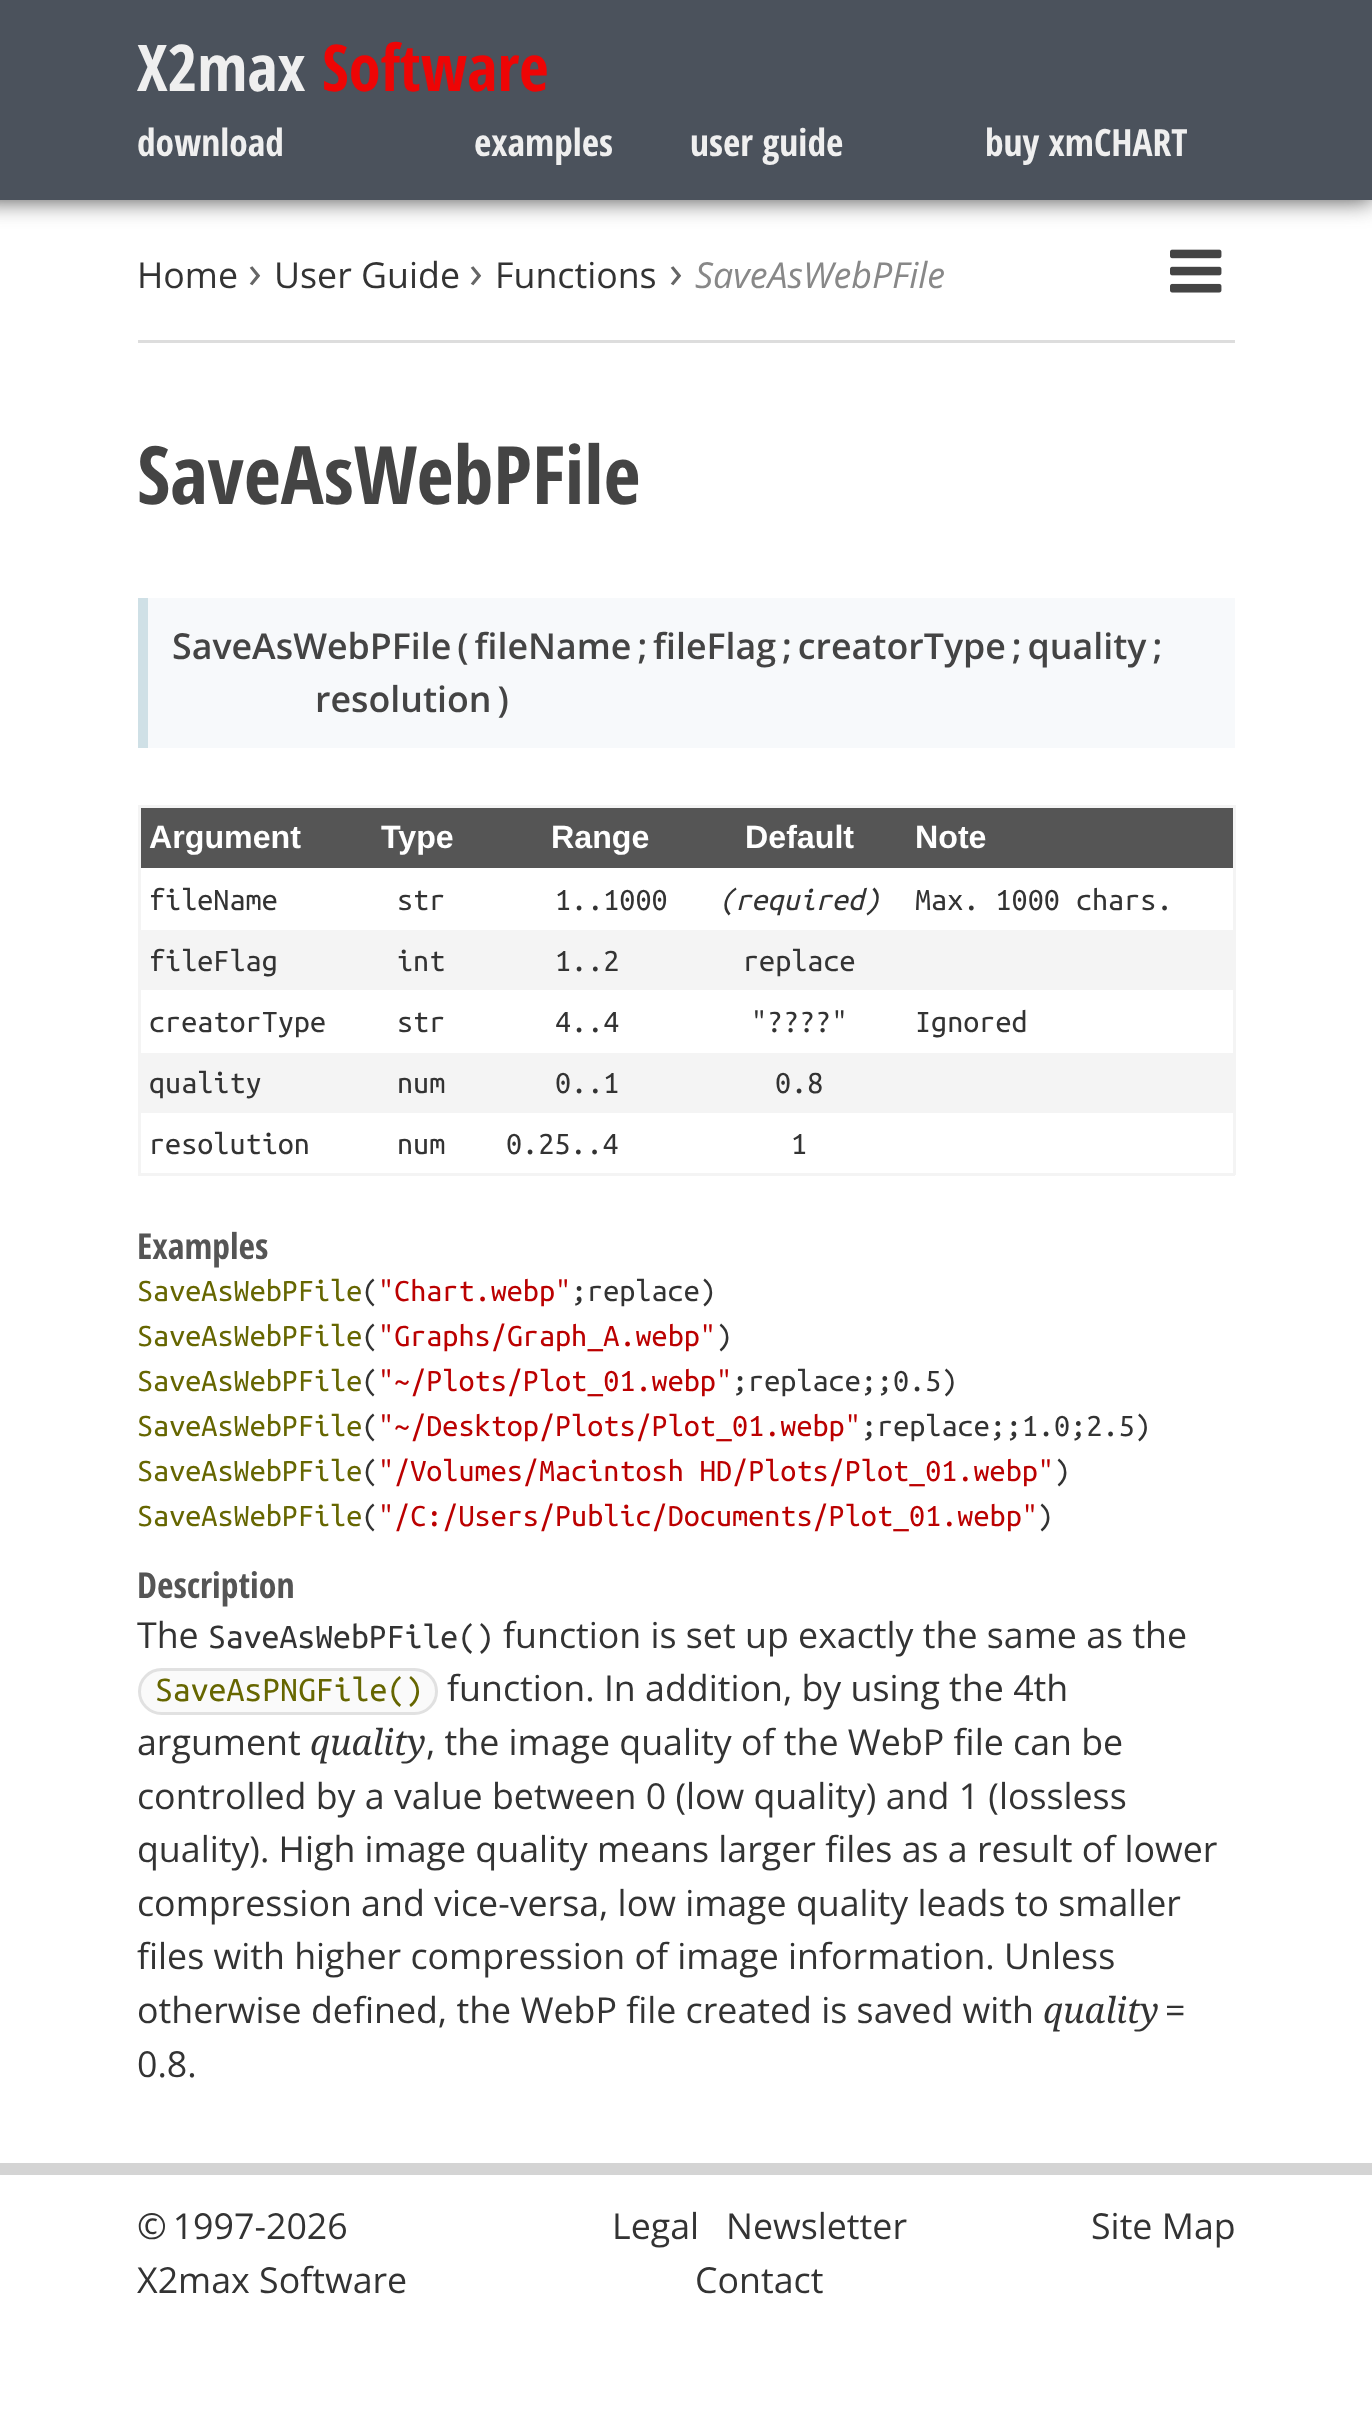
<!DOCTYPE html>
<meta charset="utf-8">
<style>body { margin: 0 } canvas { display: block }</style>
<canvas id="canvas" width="1372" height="2420"></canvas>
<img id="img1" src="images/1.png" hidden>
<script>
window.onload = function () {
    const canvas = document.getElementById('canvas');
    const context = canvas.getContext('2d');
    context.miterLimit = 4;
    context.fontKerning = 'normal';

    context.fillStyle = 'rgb(255, 255, 255)';
    context.fillRect(0, 0, 1372, 2420);
    context.fillStyle = 'rgb(72, 72, 72)';
    context.filter = 'blur(12.5px)';
    context.beginPath();
    context.rect(-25, 0, 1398, 200);
    context.fill();
    context.filter = 'none';
    context.fillStyle = 'rgb(75, 82, 92)';
    context.fillRect(0, 0, 1372, 200);
    context.drawImage(document.getElementById('img1'), 1170, 249, 52, 44);
    context.fillStyle = 'rgb(221, 221, 221)';
    context.fillRect(138, 340, 1097, 3);
    context.fillStyle = 'rgb(247, 249, 251)';
    context.fillRect(148, 598, 1087, 150);
    context.fillStyle = 'rgb(207, 224, 230)';
    context.fillRect(138, 598, 10, 150);
    context.fillStyle = 'rgb(244, 244, 244)';
    context.fillRect(138, 805, 1097, 3);
    context.fillRect(1233, 805, 3, 370);
    context.fillRect(138, 1173, 1097, 3);
    context.fillRect(138, 805, 3, 370);
    context.fillStyle = 'rgb(85, 85, 85)';
    context.fillRect(141, 808, 1092, 60);
    context.fillStyle = 'rgb(244, 244, 244)';
    context.fillRect(141, 930, 1092, 60);
    context.fillRect(141, 1053, 1092, 60);
    context.fillStyle = 'rgb(250, 250, 250)';
    context.beginPath();
    context.roundRect(139.5, 1669.5, 297, 44, 22);
    context.fill();
    context.strokeStyle = 'rgb(225, 225, 225)';
    context.lineWidth = 3;
    context.stroke();
    context.fillStyle = 'rgb(212, 212, 212)';
    context.fillRect(0, 2163, 1372, 12);
    context.font = 'bold 64.5px Open Sans Condensed';
    context.fillStyle = 'rgb(239, 239, 239)';
    context.fillText('X2max', 137, 91);
    context.fillStyle = 'rgb(238, 5, 5)';
    context.fillText('Software', 322, 91);
    context.font = 'bold 37.5px Open Sans Condensed';
    context.fillStyle = 'rgb(239, 239, 239)';
    context.fillText('download', 137, 156);
    context.fillText('examples', 474, 156);
    context.fillText('user guide', 690, 156);
    context.fillText('buy xmCHART', 985, 156);
    context.font = '35.75px Open Sans';
    context.fillStyle = 'rgb(51, 51, 51)';
    context.fillText('Home', 137, 288);
    context.font = '46px Open Sans';
    context.fillStyle = 'rgb(102, 102, 102)';
    context.fillText('›', 248, 288);
    context.font = '35.75px Open Sans';
    context.fillStyle = 'rgb(51, 51, 51)';
    context.fillText('User Guide', 274, 288);
    context.font = '46px Open Sans';
    context.fillStyle = 'rgb(102, 102, 102)';
    context.fillText('›', 469, 288);
    context.font = '35.75px Open Sans';
    context.fillStyle = 'rgb(51, 51, 51)';
    context.fillText('Functions', 495, 288);
    context.font = '46px Open Sans';
    context.fillStyle = 'rgb(102, 102, 102)';
    context.fillText('›', 669, 288);
    context.font = 'italic 35.75px Open Sans';
    context.fillStyle = 'rgb(136, 136, 136)';
    context.fillText('SaveAsWebPFile', 695, 288);
    context.font = 'bold 80.5px Open Sans Condensed';
    context.fillStyle = 'rgb(68, 68, 68)';
    context.fillText('SaveAsWebPFile', 137, 504);
    context.font = '600 35.75px Open Sans';
    context.fillText('SaveAsWebPFile ( fileName ; fileFlag ; creatorType ; quality ;', 172, 659);
    context.fillText('resolution )', 315, 712);
    context.font = 'bold 32.2px Liberation Sans';
    context.fillStyle = 'rgb(255, 255, 255)';
    context.fillText('Argument', 149, 848);
    context.fillText('Type', 381, 848);
    context.fillText('Range', 551, 848);
    context.fillText('Default', 745, 848);
    context.fillText('Note', 915, 848);
    context.font = '32.2px Ubuntu Mono';
    context.fillStyle = 'rgb(51, 51, 51)';
    context.fillText('fileName', 149, 910);
    context.fillText('str', 397, 910);
    context.fillText('1..1000', 555, 910);
    context.font = 'italic 32.2px Ubuntu Mono';
    context.fillText('(required)', 719, 910);
    context.font = '32.2px Ubuntu Mono';
    context.fillText('Max. 1000 chars.', 915, 910);
    context.fillText('fileFlag', 149, 971);
    context.fillText('int', 397, 971);
    context.fillText('1..2', 555, 971);
    context.fillText('replace', 743, 971);
    context.fillText('creatorType', 149, 1032);
    context.fillText('str', 397, 1032);
    context.fillText('4..4', 555, 1032);
    context.fillText('"????"', 751, 1032);
    context.fillText('Ignored', 915, 1032);
    context.fillText('quality', 149, 1093);
    context.fillText('num', 397, 1093);
    context.fillText('0..1', 555, 1093);
    context.fillText('0.8', 775, 1093);
    context.fillText('resolution', 149, 1154);
    context.fillText('num', 397, 1154);
    context.fillText('0.25..4', 506, 1154);
    context.fillText('1', 791, 1154);
    context.font = 'bold 35.75px Open Sans Condensed';
    context.fillStyle = 'rgb(85, 85, 85)';
    context.fillText('Examples', 137, 1259);
    context.font = '32.2px Ubuntu Mono';
    context.fillStyle = 'rgb(102, 102, 0)';
    context.fillText('SaveAsWebPFile', 137, 1301);
    context.fillStyle = 'rgb(51, 51, 51)';
    context.fillText('(', 362, 1301);
    context.fillStyle = 'rgb(187, 0, 0)';
    context.fillText('"Chart.webp"', 378, 1301);
    context.fillStyle = 'rgb(51, 51, 51)';
    context.fillText(';replace)', 571, 1301);
    context.fillStyle = 'rgb(102, 102, 0)';
    context.fillText('SaveAsWebPFile', 137, 1346);
    context.fillStyle = 'rgb(51, 51, 51)';
    context.fillText('(', 362, 1346);
    context.fillStyle = 'rgb(187, 0, 0)';
    context.fillText('"Graphs/Graph_A.webp"', 378, 1346);
    context.fillStyle = 'rgb(51, 51, 51)';
    context.fillText(')', 716, 1346);
    context.fillStyle = 'rgb(102, 102, 0)';
    context.fillText('SaveAsWebPFile', 137, 1391);
    context.fillStyle = 'rgb(51, 51, 51)';
    context.fillText('(', 362, 1391);
    context.fillStyle = 'rgb(187, 0, 0)';
    context.fillText('"~/Plots/Plot_01.webp"', 378, 1391);
    context.fillStyle = 'rgb(51, 51, 51)';
    context.fillText(';replace;;0.5)', 732, 1391);
    context.fillStyle = 'rgb(102, 102, 0)';
    context.fillText('SaveAsWebPFile', 137, 1436);
    context.fillStyle = 'rgb(51, 51, 51)';
    context.fillText('(', 362, 1436);
    context.fillStyle = 'rgb(187, 0, 0)';
    context.fillText('"~/Desktop/Plots/Plot_01.webp"', 378, 1436);
    context.fillStyle = 'rgb(51, 51, 51)';
    context.fillText(';replace;;1.0;2.5)', 861, 1436);
    context.fillStyle = 'rgb(102, 102, 0)';
    context.fillText('SaveAsWebPFile', 137, 1481);
    context.fillStyle = 'rgb(51, 51, 51)';
    context.fillText('(', 362, 1481);
    context.fillStyle = 'rgb(187, 0, 0)';
    context.fillText('"/Volumes/Macintosh HD/Plots/Plot_01.webp"', 378, 1481);
    context.fillStyle = 'rgb(51, 51, 51)';
    context.fillText(')', 1054, 1481);
    context.fillStyle = 'rgb(102, 102, 0)';
    context.fillText('SaveAsWebPFile', 137, 1526);
    context.fillStyle = 'rgb(51, 51, 51)';
    context.fillText('(', 362, 1526);
    context.fillStyle = 'rgb(187, 0, 0)';
    context.fillText('"/C:/Users/Public/Documents/Plot_01.webp"', 378, 1526);
    context.fillStyle = 'rgb(51, 51, 51)';
    context.fillText(')', 1037, 1526);
    context.font = 'bold 35.75px Open Sans Condensed';
    context.fillStyle = 'rgb(85, 85, 85)';
    context.fillText('Description', 137, 1598);
    context.font = '35.75px Open Sans';
    context.fillStyle = 'rgb(51, 51, 51)';
    context.fillText('The', 137, 1648);
    context.font = '35.75px Ubuntu Mono';
    context.fillText('SaveAsWebPFile()', 208, 1648);
    context.font = '35.75px Open Sans';
    context.fillText('function is set up exactly the same as the', 503, 1648);
    context.font = '35.75px Ubuntu Mono';
    context.fillStyle = 'rgb(102, 102, 0)';
    context.fillText('SaveAsPNGFile()', 155, 1701);
    context.font = '35.75px Open Sans';
    context.fillStyle = 'rgb(51, 51, 51)';
    context.fillText('function. In addition, by using the 4th', 447, 1701);
    context.fillText('argument', 137, 1755);
    context.font = 'italic 35.75px Noto Serif';
    context.fillText('quality', 310, 1755);
    context.font = '35.75px Open Sans';
    context.fillText(', the image quality of the WebP file can be', 426, 1755);
    context.fillText('controlled by a value between 0 (low quality) and 1 (lossless', 137, 1809);
    context.fillText('quality). High image quality means larger files as a result of lower', 137, 1862);
    context.fillText('compression and vice-versa, low image quality leads to smaller', 137, 1916);
    context.fillText('files with higher compression of image information. Unless', 137, 1969);
    context.fillText('otherwise defined, the WebP file created is saved with', 137, 2023);
    context.font = 'italic 35.75px Noto Serif';
    context.fillText('quality', 1043, 2023);
    context.font = '35.75px Open Sans';
    context.fillText('=', 1165, 2023);
    context.fillText('0.8.', 137, 2077);
    context.fillText('© 1997-2026', 137, 2239);
    context.fillText('X2max Software', 137, 2293);
    context.fillText('Legal', 612, 2239);
    context.fillText('Newsletter', 726, 2239);
    context.fillText('Contact', 695, 2293);
    context.fillText('Site Map', 1091, 2239);
};
</script>
